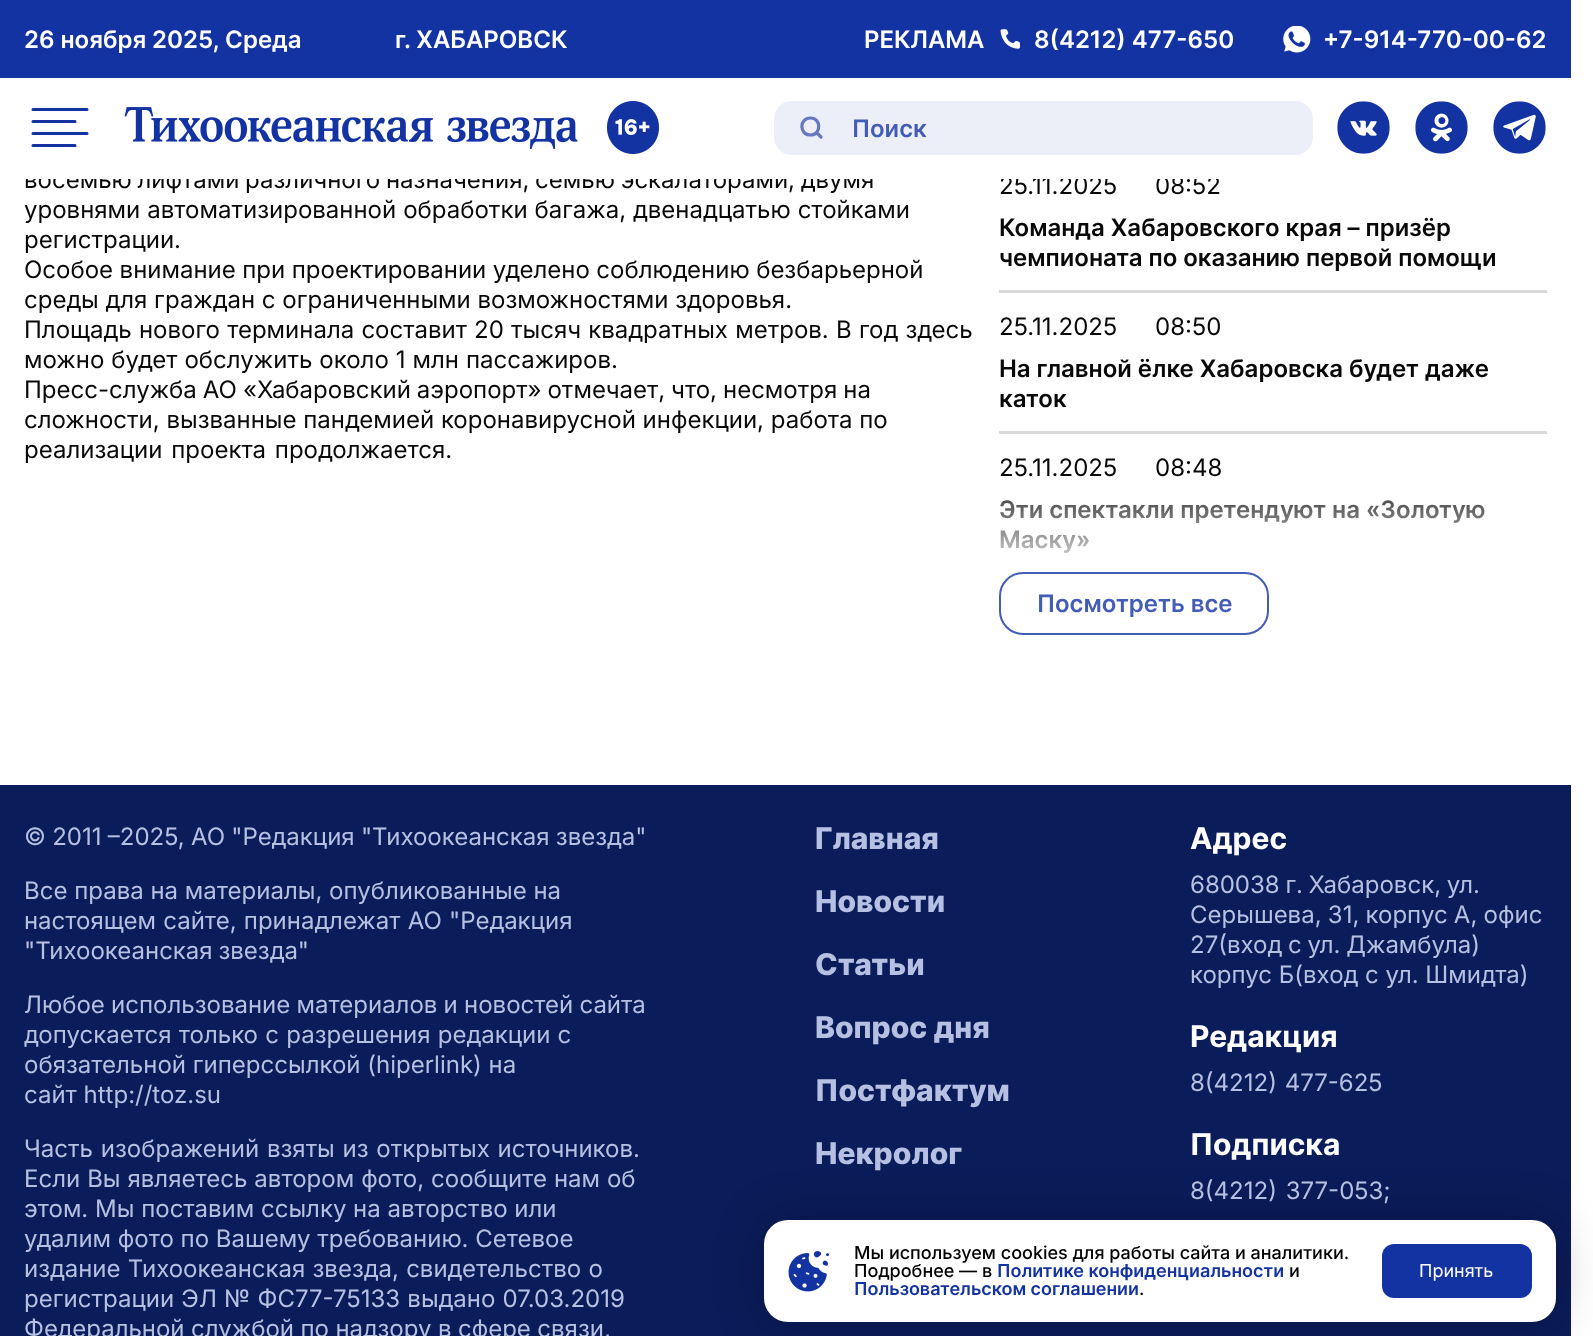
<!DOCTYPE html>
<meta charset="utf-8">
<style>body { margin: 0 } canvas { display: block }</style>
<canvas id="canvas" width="1593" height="1336"></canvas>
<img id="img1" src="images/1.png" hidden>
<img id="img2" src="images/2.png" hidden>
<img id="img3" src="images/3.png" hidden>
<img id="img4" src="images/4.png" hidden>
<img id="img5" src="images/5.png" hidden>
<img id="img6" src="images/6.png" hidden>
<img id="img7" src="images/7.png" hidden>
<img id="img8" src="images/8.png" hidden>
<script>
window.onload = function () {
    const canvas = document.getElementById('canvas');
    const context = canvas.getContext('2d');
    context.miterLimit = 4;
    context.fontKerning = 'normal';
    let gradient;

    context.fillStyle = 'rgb(255, 255, 255)';
    context.fillRect(0, 0, 1593, 1336);
    context.fillStyle = 'rgb(20, 51, 163)';
    context.fillRect(0, 0, 1571, 78);
    context.drawImage(document.getElementById('img1'), 1000, 29, 20, 20);
    context.drawImage(document.getElementById('img2'), 1283, 26, 28, 27);
    context.beginPath();
    context.moveTo(75, 121.5);
    context.lineTo(33, 121.5);
    context.moveTo(87, 109.5);
    context.lineTo(33, 109.5);
    context.moveTo(87, 133.5);
    context.lineTo(33, 133.5);
    context.moveTo(75, 145.5);
    context.lineTo(33, 145.5);
    context.strokeStyle = 'rgb(20, 51, 163)';
    context.lineWidth = 3.1;
    context.lineCap = 'round';
    context.lineJoin = 'round';
    context.stroke();
    context.drawImage(document.getElementById('img3'), 124, 107, 454, 43);
    context.drawImage(document.getElementById('img4'), 607, 101, 52, 53);
    context.fillStyle = 'rgb(237, 239, 248)';
    context.beginPath();
    context.roundRect(774, 101, 539, 54, 18);
    context.fill();
    context.beginPath();
    context.moveTo(810.5, 135);
    context.bezierCurveTo(821.5, 135, 821.5, 118, 810.5, 118);
    context.bezierCurveTo(799, 118, 799, 135, 810.5, 135);
    context.closePath();
    context.moveTo(821, 137);
    context.lineTo(816.5, 132.5);
    context.strokeStyle = 'rgb(101, 121, 194)';
    context.lineWidth = 3.2;
    context.stroke();
    context.drawImage(document.getElementById('img5'), 1337, 101, 53, 53);
    context.drawImage(document.getElementById('img6'), 1415, 101, 53, 53);
    context.drawImage(document.getElementById('img7'), 1493, 101, 53, 53);
    context.fillStyle = 'rgb(217, 217, 217)';
    context.fillRect(999, 290, 548, 3);
    context.fillRect(999, 431, 548, 3);
    context.beginPath();
    context.roundRect(1000, 573, 268, 61, 23);
    context.strokeStyle = 'rgb(67, 92, 181)';
    context.lineWidth = 2;
    context.lineJoin = 'miter';
    context.stroke();
    context.fillStyle = 'rgb(11, 28, 90)';
    context.fillRect(0, 785, 1571, 551);
    context.fillStyle = 'rgba(0, 0, 0, 0.25)';
    context.filter = 'blur(24px)';
    context.beginPath();
    context.roundRect(764, 1220, 792, 102, 24);
    context.fill();
    context.filter = 'none';
    context.fillStyle = 'rgb(255, 255, 255)';
    context.beginPath();
    context.roundRect(764, 1220, 792, 102, 24);
    context.fill();
    context.drawImage(document.getElementById('img8'), 788, 1251, 41, 41);
    context.fillStyle = 'rgb(20, 51, 163)';
    context.beginPath();
    context.roundRect(1382, 1244, 150, 54, 12);
    context.fill();
    context.font = '600 24px Inter';
    context.fillStyle = 'rgb(255, 255, 255)';
    context.fillText('26 ноября 2025, Среда', 24, 48);
    context.fillText('г. ХАБАРОВСК', 395, 48);
    context.fillText('РЕКЛАМА', 864, 48);
    context.fillText('8(4212) 477-650', 1034, 48);
    context.fillText('+7-914-770-00-62', 1323, 48);
    context.fillStyle = 'rgb(67, 92, 181)';
    context.fillText('Поиск', 852, 137);
    context.wordSpacing = '-1px';
    context.font = '24px Inter';
    context.fillStyle = 'rgb(9, 9, 9)';
    context.fillText('восемью лифтами различного назначения, семью эскалаторами, двумя', 24, 188);
    context.wordSpacing = '0.25px';
    context.fillText('уровнями автоматизированной обработки багажа, двенадцатью стойками', 24, 218);
    context.wordSpacing = '0px';
    context.fillText('регистрации.', 24, 248);
    context.wordSpacing = '-0.25px';
    context.fillText('Особое внимание при проектировании уделено соблюдению безбарьерной', 24, 278);
    context.wordSpacing = '0px';
    context.fillText('среды для граждан с ограниченными возможностями здоровья.', 24, 308);
    context.wordSpacing = '0.5px';
    context.fillText('Площадь нового терминала составит 20 тысяч квадратных метров. В год здесь', 24, 338);
    context.wordSpacing = '0.25px';
    context.fillText('можно будет обслужить около 1 млн пассажиров.', 24, 368);
    context.wordSpacing = '-0.75px';
    context.fillText('Пресс-служба АО «Хабаровский аэропорт» отмечает, что, несмотря на', 24, 398);
    context.wordSpacing = '0px';
    context.fillText('сложности, вызванные пандемией коронавирусной инфекции, работа по', 24, 428);
    context.wordSpacing = '2px';
    context.fillText('реализации проекта продолжается.', 24, 458);
    context.wordSpacing = '0px';
    context.fillText('25.11.2025', 999, 194);
    context.fillText('08:52', 1155, 194);
    context.fillStyle = 'rgb(255, 255, 255)';
    context.fillRect(25, 170, 1193, 9);
    context.font = '600 24px Inter';
    context.fillStyle = 'rgb(9, 9, 9)';
    context.fillText('Команда Хабаровского края – призёр', 999, 236);
    context.fillText('чемпионата по оказанию первой помощи', 999, 266);
    context.font = '24px Inter';
    context.fillText('25.11.2025', 999, 335);
    context.fillText('08:50', 1155, 335);
    context.font = '600 24px Inter';
    context.fillText('На главной ёлке Хабаровска будет даже', 999, 377);
    context.fillText('каток', 999, 407);
    context.font = '24px Inter';
    context.fillText('25.11.2025', 999, 476);
    context.fillText('08:48', 1155, 476);
    context.font = '600 24px Inter';
    gradient = context.createLinearGradient(1273, 467, 1273, 554);
    gradient.addColorStop(0, 'rgb(9, 9, 9)');
    gradient.addColorStop(1, 'rgb(194, 194, 194)');
    context.fillStyle = gradient;
    context.fillText('Эти спектакли претендуют на «Золотую', 999, 518);
    context.fillText('Маску»', 999, 548);
    context.fillStyle = 'rgb(67, 92, 181)';
    context.fillText('Посмотреть все', 1037, 612);
    context.wordSpacing = '-0.5px';
    context.font = '24px Inter';
    context.fillStyle = 'rgb(182, 192, 226)';
    context.fillText('© 2011 –2025, АО "Редакция "Тихоокеанская звезда"', 24, 845);
    context.wordSpacing = '0px';
    context.fillText('Все права на материалы, опубликованные на', 24, 899);
    context.wordSpacing = '0.5px';
    context.fillText('настоящем сайте, принадлежат АО "Редакция', 24, 929);
    context.wordSpacing = '-1px';
    context.fillText('"Тихоокеанская звезда"', 24, 959);
    context.wordSpacing = '-0.5px';
    context.fillText('Любое использование материалов и новостей сайта', 24, 1013);
    context.wordSpacing = '0.5px';
    context.fillText('допускается только с разрешения редакции с', 24, 1043);
    context.wordSpacing = '0px';
    context.fillText('обязательной гиперссылкой (hiperlink) на', 24, 1073);
    context.fillText('сайт http://toz.su', 24, 1103);
    context.wordSpacing = '1px';
    context.fillText('Часть изображений взяты из открытых источников.', 24, 1157);
    context.wordSpacing = '0.25px';
    context.fillText('Если Вы являетесь автором фото, сообщите нам об', 24, 1187);
    context.wordSpacing = '0px';
    context.fillText('этом. Мы поставим ссылку на авторство или', 24, 1217);
    context.fillText('удалим фото по Вашему требованию. Сетевое', 24, 1247);
    context.wordSpacing = '0.5px';
    context.fillText('издание Тихоокеанская звезда, свидетельство о', 24, 1277);
    context.fillText('регистрации ЭЛ № ФС77-75133 выдано 07.03.2019', 24, 1307);
    context.wordSpacing = '-0.25px';
    context.fillText('Федеральной службой по надзору в сфере связи,', 24, 1337);
    context.wordSpacing = '0px';
    context.font = '800 30px Inter';
    context.fillText('Главная', 815, 849);
    context.fillText('Новости', 815, 912);
    context.fillText('Статьи', 815, 975);
    context.fillText('Вопрос дня', 815, 1038);
    context.fillText('Постфактум', 815, 1101);
    context.fillText('Некролог', 815, 1164);
    context.font = 'bold 30px Inter';
    context.fillStyle = 'rgb(255, 255, 255)';
    context.fillText('Адрес', 1190, 849);
    context.wordSpacing = '-1px';
    context.font = '24px Inter';
    context.fillStyle = 'rgb(182, 192, 226)';
    context.fillText('680038 г. Хабаровск, ул.', 1190, 893);
    context.wordSpacing = '-0.5px';
    context.fillText('Серышева, 31, корпус А, офис', 1190, 923);
    context.wordSpacing = '-1px';
    context.fillText('27(вход с ул. Джамбула)', 1190, 953);
    context.wordSpacing = '0px';
    context.fillText('корпус Б(вход с ул. Шмидта)', 1190, 983);
    context.font = 'bold 30px Inter';
    context.fillStyle = 'rgb(255, 255, 255)';
    context.fillText('Редакция', 1190, 1047);
    context.wordSpacing = '1px';
    context.font = '24px Inter';
    context.fillStyle = 'rgb(182, 192, 226)';
    context.fillText('8(4212) 477-625', 1190, 1091);
    context.wordSpacing = '0px';
    context.font = 'bold 30px Inter';
    context.fillStyle = 'rgb(255, 255, 255)';
    context.fillText('Подписка', 1190, 1155);
    context.wordSpacing = '2px';
    context.font = '24px Inter';
    context.fillStyle = 'rgb(182, 192, 226)';
    context.fillText('8(4212) 377-053;', 1190, 1199);
    context.wordSpacing = '0px';
    context.font = '500 18px Inter';
    context.fillStyle = 'rgb(0, 0, 0)';
    context.fillText('Мы используем cookies для работы сайта и аналитики.', 854, 1259);
    context.fillText('Подробнее — в', 854, 1277);
    context.font = '600 18px Inter';
    context.fillStyle = 'rgb(20, 51, 163)';
    context.fillText('Политике конфиденциальности', 997, 1277);
    context.font = '500 18px Inter';
    context.fillStyle = 'rgb(0, 0, 0)';
    context.fillText('и', 1289, 1277);
    context.font = '600 18px Inter';
    context.fillStyle = 'rgb(20, 51, 163)';
    context.fillText('Пользовательском соглашении', 854, 1295);
    context.font = '500 18px Inter';
    context.fillStyle = 'rgb(0, 0, 0)';
    context.fillText('.', 1139, 1295);
    context.font = '18px Inter';
    context.fillStyle = 'rgb(255, 255, 255)';
    context.fillText('Принять', 1419, 1277);
};
</script>
